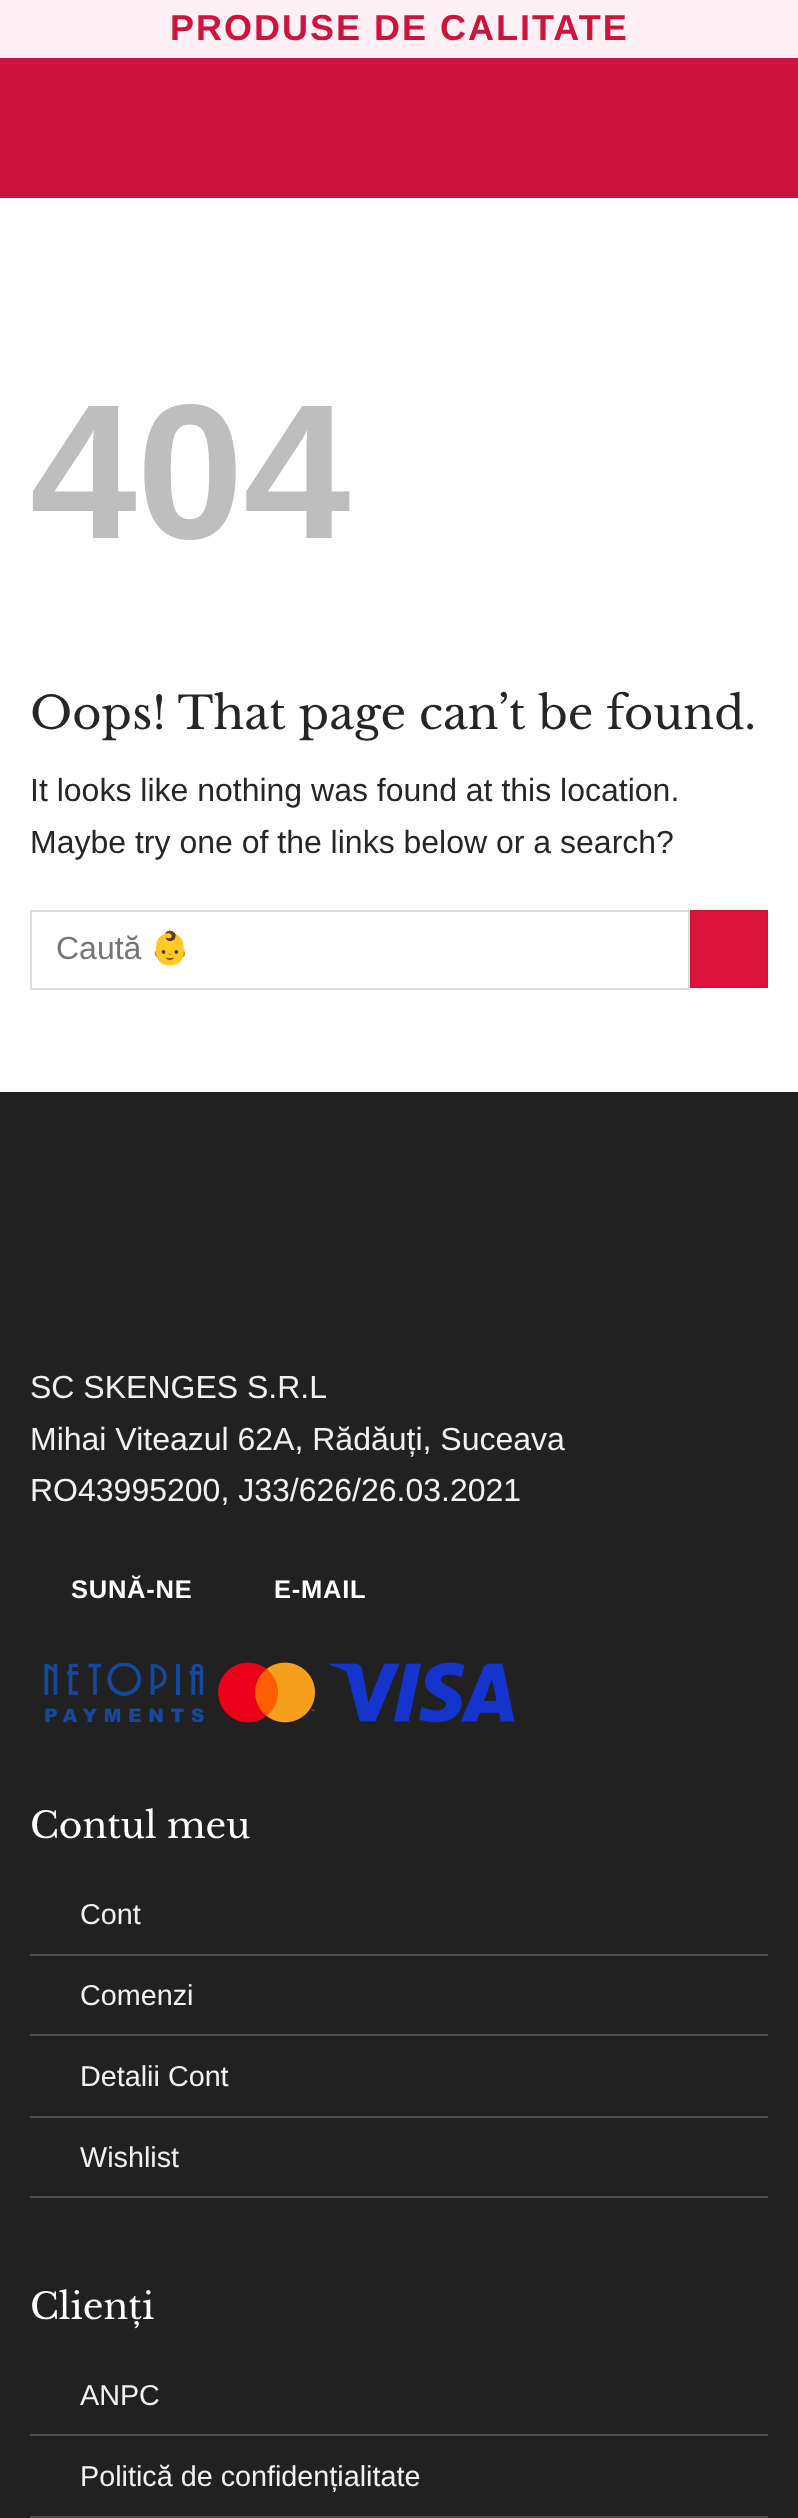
<!DOCTYPE html>
<meta charset="utf-8">
<style>body { margin: 0 } canvas { display: block }</style>
<canvas id="canvas" width="798" height="2518"></canvas>
<img id="img1" src="images/1.png" hidden>
<script>
window.onload = function () {
    const canvas = document.getElementById('canvas');
    const context = canvas.getContext('2d');
    context.miterLimit = 4;
    context.fontKerning = 'normal';

    context.fillStyle = 'rgb(255, 255, 255)';
    context.fillRect(0, 0, 798, 2518);
    context.fillStyle = 'rgb(255, 240, 245)';
    context.fillRect(0, 0, 798, 58);
    context.fillStyle = 'rgb(205, 20, 61)';
    context.fillRect(0, 58, 798, 140);
    context.strokeStyle = 'rgb(221, 221, 221)';
    context.lineWidth = 2;
    context.strokeRect(31, 911, 658, 78);
    context.fillStyle = 'rgb(220, 20, 60)';
    context.beginPath();
    context.rect(691, 911, 76, 76);
    context.fill();
    context.strokeStyle = 'rgb(209, 19, 57)';
    context.stroke();
    context.fillStyle = 'rgb(33, 33, 33)';
    context.fillRect(0, 1092, 798, 1426);
    context.drawImage(document.getElementById('img1'), 44, 1662, 471, 61);
    context.fillStyle = 'rgb(77, 77, 77)';
    context.fillRect(30, 1954, 738, 2);
    context.fillRect(30, 2034, 738, 2);
    context.fillRect(30, 2116, 738, 2);
    context.fillRect(30, 2196, 738, 2);
    context.fillRect(30, 2434, 738, 2);
    context.fillRect(30, 2516, 738, 2);
    context.letterSpacing = '2px';
    context.font = 'bold 36px Liberation Sans';
    context.fillStyle = 'rgb(205, 20, 61)';
    context.fillText('PRODUSE DE CALITATE', 170, 40);
    context.letterSpacing = '0px';
    context.font = 'bold 192px Liberation Sans';
    context.fillStyle = 'rgb(190, 190, 190)';
    context.fillText('404', 30, 538);
    context.font = '44.75px Libre Baskerville';
    context.fillStyle = 'rgb(38, 38, 38)';
    context.fillText('Oops! That page can’t be found.', 30, 729);
    context.font = '32px Liberation Sans';
    context.fillText('It looks like nothing was found at this location.', 30, 801);
    context.fillText('Maybe try one of the links below or a search?', 30, 853);
    context.fillStyle = 'rgb(117, 117, 117)';
    context.fillText('Caută', 56, 959);
    context.font = '32px Noto Color Emoji';
    context.fillText('👶', 150, 959);
    context.font = '32px Liberation Sans';
    context.fillStyle = 'rgb(241, 241, 241)';
    context.fillText('SC SKENGES S.R.L', 30, 1398);
    context.fillText('Mihai Viteazul 62A, Rădăuți, Suceava', 30, 1450);
    context.fillText('RO43995200, J33/626/26.03.2021', 30, 1501);
    context.letterSpacing = '0.75px';
    context.font = 'bold 25.5px Liberation Sans';
    context.fillStyle = 'rgb(255, 255, 255)';
    context.fillText('SUNĂ-NE', 71, 1598);
    context.fillText('E-MAIL', 274, 1598);
    context.letterSpacing = '0px';
    context.font = '36px Libre Baskerville';
    context.fillText('Contul meu', 30, 1838);
    context.font = '28.75px Liberation Sans';
    context.fillStyle = 'rgb(241, 241, 241)';
    context.fillText('Cont', 80, 1924);
    context.fillText('Comenzi', 80, 2005);
    context.fillText('Detalii Cont', 80, 2086);
    context.fillText('Wishlist', 80, 2167);
    context.font = '36px Libre Baskerville';
    context.fillStyle = 'rgb(255, 255, 255)';
    context.fillText('Clienți', 30, 2319);
    context.font = '28.75px Liberation Sans';
    context.fillStyle = 'rgb(241, 241, 241)';
    context.fillText('ANPC', 80, 2405);
    context.fillText('Politică de confidențialitate', 80, 2486);
};
</script>
